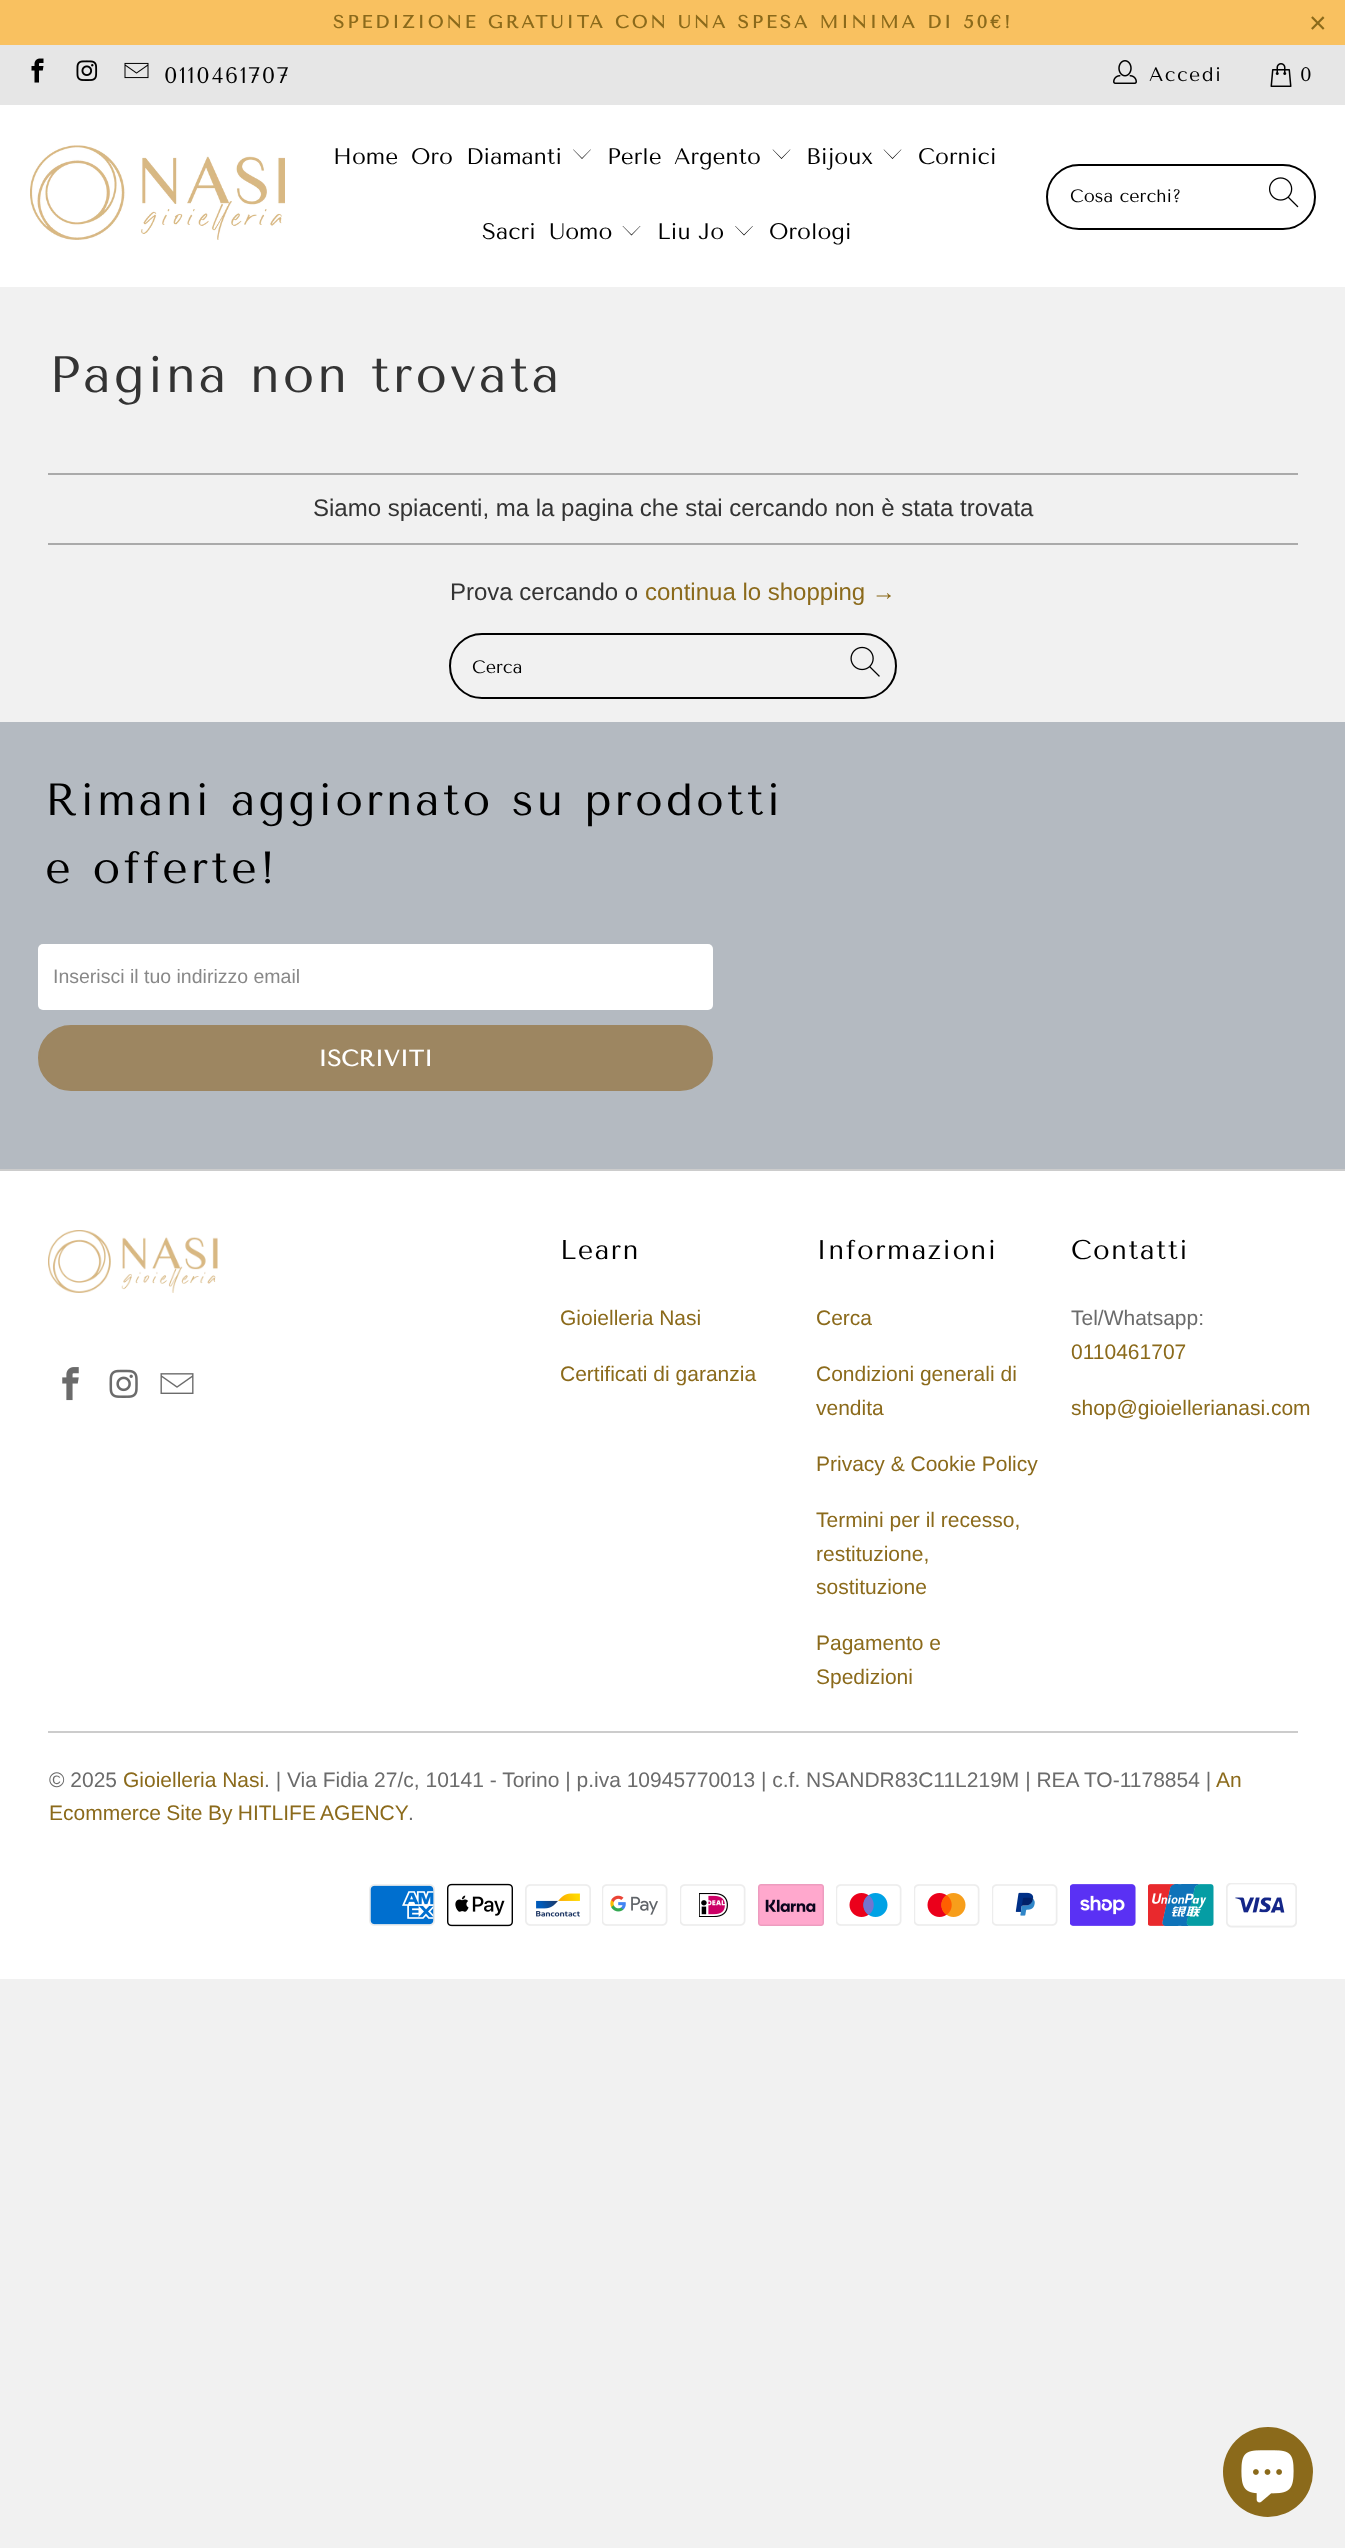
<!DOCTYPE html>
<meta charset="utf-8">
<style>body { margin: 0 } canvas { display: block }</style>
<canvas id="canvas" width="1345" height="2548"></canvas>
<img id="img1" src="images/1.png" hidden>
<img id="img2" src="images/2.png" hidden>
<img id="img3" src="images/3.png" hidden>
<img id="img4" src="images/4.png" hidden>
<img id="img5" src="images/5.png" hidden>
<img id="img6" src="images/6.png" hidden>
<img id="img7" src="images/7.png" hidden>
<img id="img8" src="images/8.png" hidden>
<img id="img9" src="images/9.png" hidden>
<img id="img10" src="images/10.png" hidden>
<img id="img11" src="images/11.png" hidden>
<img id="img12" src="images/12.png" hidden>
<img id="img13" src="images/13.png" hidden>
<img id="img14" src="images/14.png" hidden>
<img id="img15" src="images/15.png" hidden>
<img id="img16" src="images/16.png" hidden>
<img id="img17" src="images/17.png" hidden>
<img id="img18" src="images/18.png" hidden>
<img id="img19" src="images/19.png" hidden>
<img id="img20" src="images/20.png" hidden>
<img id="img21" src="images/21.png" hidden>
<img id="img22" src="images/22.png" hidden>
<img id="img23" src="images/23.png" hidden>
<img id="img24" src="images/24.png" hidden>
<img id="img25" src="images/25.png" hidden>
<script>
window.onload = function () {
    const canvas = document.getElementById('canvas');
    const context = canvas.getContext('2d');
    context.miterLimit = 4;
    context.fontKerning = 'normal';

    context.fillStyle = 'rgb(241, 241, 241)';
    context.fillRect(0, 0, 1345, 2548);
    context.fillStyle = 'rgb(249, 193, 96)';
    context.fillRect(0, 0, 1345, 45);
    context.fillStyle = 'rgb(230, 230, 230)';
    context.fillRect(0, 45, 1345, 60);
    context.drawImage(document.getElementById('img1'), 31, 58, 13, 25);
    context.drawImage(document.getElementById('img2'), 76, 60, 22, 21);
    context.drawImage(document.getElementById('img3'), 124, 62, 25, 17);
    context.drawImage(document.getElementById('img4'), 1113, 60, 24, 24);
    context.drawImage(document.getElementById('img5'), 1270, 63, 22, 24);
    context.fillStyle = 'rgb(255, 255, 255)';
    context.fillRect(0, 105, 1345, 182);
    context.drawImage(document.getElementById('img6'), 30, 145, 255, 95);
    context.fillStyle = 'rgb(0, 0, 0)';
    context.beginPath();
    context.moveTo(582, 159);
    context.lineTo(573, 149.5);
    context.lineTo(573.5, 149.5);
    context.lineTo(582, 158);
    context.lineTo(590.5, 149.5);
    context.lineTo(591, 149.5);
    context.closePath();
    context.fill();
    context.beginPath();
    context.moveTo(781.5, 159);
    context.lineTo(772.5, 149.5);
    context.lineTo(773, 149.5);
    context.lineTo(781.5, 158);
    context.lineTo(790, 149.5);
    context.lineTo(790.5, 149.5);
    context.closePath();
    context.fill();
    context.beginPath();
    context.moveTo(892.5, 159);
    context.lineTo(883.5, 149.5);
    context.lineTo(884, 149.5);
    context.lineTo(892.5, 158);
    context.lineTo(901, 149.5);
    context.lineTo(901.5, 149.5);
    context.closePath();
    context.fill();
    context.beginPath();
    context.moveTo(631.5, 235.5);
    context.lineTo(622.5, 226);
    context.lineTo(623, 226);
    context.lineTo(631.5, 234.5);
    context.lineTo(640, 226);
    context.lineTo(640.5, 226);
    context.closePath();
    context.fill();
    context.beginPath();
    context.moveTo(744, 235.5);
    context.lineTo(735, 226);
    context.lineTo(735.5, 226);
    context.lineTo(744, 234.5);
    context.lineTo(752.5, 226);
    context.lineTo(753, 226);
    context.closePath();
    context.fill();
    context.beginPath();
    context.roundRect(1047, 165, 268, 64, 32);
    context.strokeStyle = 'rgb(0, 0, 0)';
    context.lineWidth = 2;
    context.stroke();
    context.drawImage(document.getElementById('img7'), 1269, 177, 30, 31);
    context.fillStyle = 'rgb(170, 170, 170)';
    context.fillRect(48, 473, 1250, 2);
    context.fillRect(48, 543, 1250, 2);
    context.beginPath();
    context.roundRect(450, 634, 446, 64, 32);
    context.stroke();
    context.drawImage(document.getElementById('img8'), 850, 646, 30, 31);
    context.fillStyle = 'rgb(180, 186, 193)';
    context.fillRect(0, 722, 1345, 447);
    context.fillStyle = 'rgb(255, 255, 255)';
    context.beginPath();
    context.roundRect(38, 944, 675, 66, 5);
    context.fill();
    context.fillStyle = 'rgb(157, 134, 97)';
    context.beginPath();
    context.roundRect(39, 1026, 673, 64, 32);
    context.fill();
    context.strokeStyle = 'rgb(157, 134, 97)';
    context.stroke();
    context.fillStyle = 'rgb(255, 255, 255)';
    context.fillRect(0, 1171, 1345, 808);
    context.fillStyle = 'rgb(204, 204, 204)';
    context.fillRect(0, 1169, 1345, 2);
    context.drawImage(document.getElementById('img9'), 48, 1230, 170, 63);
    context.drawImage(document.getElementById('img10'), 62, 1367, 17, 34);
    context.drawImage(document.getElementById('img11'), 109, 1369, 29, 29);
    context.drawImage(document.getElementById('img12'), 160, 1373, 34, 21);
    context.fillRect(48, 1731, 1250, 2);
    context.drawImage(document.getElementById('img13'), 369, 1884, 66, 42);
    context.drawImage(document.getElementById('img14'), 447, 1883, 66, 44);
    context.drawImage(document.getElementById('img15'), 525, 1884, 66, 42);
    context.drawImage(document.getElementById('img16'), 602, 1884, 66, 42);
    context.drawImage(document.getElementById('img17'), 680, 1884, 66, 42);
    context.drawImage(document.getElementById('img18'), 758, 1884, 66, 42);
    context.drawImage(document.getElementById('img19'), 836, 1884, 66, 42);
    context.drawImage(document.getElementById('img20'), 914, 1884, 66, 42);
    context.drawImage(document.getElementById('img21'), 992, 1884, 66, 42);
    context.drawImage(document.getElementById('img22'), 1070, 1884, 66, 42);
    context.drawImage(document.getElementById('img23'), 1148, 1884, 66, 42);
    context.drawImage(document.getElementById('img24'), 1226, 1883, 71, 45);
    context.fillStyle = 'rgb(139, 106, 27)';
    context.beginPath();
    context.arc(1268, 2472, 45, 0, 2 * Math.PI);
    context.fill();
    context.drawImage(document.getElementById('img25'), 1241, 2450, 53, 53);
    context.letterSpacing = '3px';
    context.font = 'bold 18px Tenor Sans';
    context.fillText('SPEDIZIONE GRATUITA CON UNA SPESA MINIMA DI 50€!', 333, 28);
    context.font = '30px Liberation Sans';
    context.fillText('×', 1309, 33);
    context.letterSpacing = '1.5px';
    context.font = '22.5px Tenor Sans';
    context.fillStyle = 'rgb(0, 0, 0)';
    context.fillText('0110461707', 164, 83);
    context.font = '19.5px Tenor Sans';
    context.fillText('Accedi', 1149, 81);
    context.fillText('0', 1300, 81);
    context.letterSpacing = '0px';
    context.font = '22.5px Tenor Sans';
    context.fillText('Home', 333, 164);
    context.fillText('Oro', 411, 164);
    context.fillText('Diamanti', 466, 164);
    context.fillText('Perle', 607, 164);
    context.fillText('Argento', 674, 164);
    context.fillText('Bijoux', 806, 164);
    context.fillText('Cornici', 918, 164);
    context.fillText('Sacri', 482, 239);
    context.fillText('Uomo', 549, 239);
    context.fillText('Liu Jo', 657, 239);
    context.fillText('Orologi', 769, 239);
    context.font = '18px Tenor Sans';
    context.fillText('Cosa cerchi?', 1070, 202);
    context.letterSpacing = '3px';
    context.font = '51px Tenor Sans';
    context.fillStyle = 'rgb(51, 51, 51)';
    context.fillText('Pagina non trovata', 49, 392);
    context.letterSpacing = '0px';
    context.font = '24px Liberation Sans';
    context.fillText('Siamo spiacenti, ma la pagina che stai cercando non è stata trovata', 313, 516);
    context.fillText('Prova cercando o', 450, 600);
    context.fillStyle = 'rgb(139, 106, 27)';
    context.fillText('continua lo shopping →', 645, 600);
    context.font = '18px Tenor Sans';
    context.fillStyle = 'rgb(0, 0, 0)';
    context.fillText('Cerca', 472, 673);
    context.letterSpacing = '3px';
    context.font = '45px Tenor Sans';
    context.fillText('Rimani aggiornato su prodotti', 45, 815);
    context.fillText('e offerte!', 45, 883);
    context.letterSpacing = '0px';
    context.font = '19.5px Liberation Sans';
    context.fillStyle = 'rgb(136, 136, 136)';
    context.fillText('Inserisci il tuo indirizzo email', 53, 983);
    context.font = 'bold 22.5px Tenor Sans';
    context.fillStyle = 'rgb(255, 255, 255)';
    context.fillText('ISCRIVITI', 318, 1066);
    context.letterSpacing = '1.5px';
    context.font = '27px Tenor Sans';
    context.fillStyle = 'rgb(0, 0, 0)';
    context.fillText('Learn', 560, 1259);
    context.letterSpacing = '0px';
    context.font = '21px Liberation Sans';
    context.fillStyle = 'rgb(139, 106, 27)';
    context.fillText('Gioielleria Nasi', 560, 1325);
    context.fillText('Certificati di garanzia', 560, 1381);
    context.letterSpacing = '1.5px';
    context.font = '27px Tenor Sans';
    context.fillStyle = 'rgb(0, 0, 0)';
    context.fillText('Informazioni', 816, 1259);
    context.letterSpacing = '0px';
    context.font = '21px Liberation Sans';
    context.fillStyle = 'rgb(139, 106, 27)';
    context.fillText('Cerca', 816, 1325);
    context.fillText('Condizioni generali di', 816, 1381);
    context.fillText('vendita', 816, 1415);
    context.fillText('Privacy & Cookie Policy', 816, 1471);
    context.fillText('Termini per il recesso,', 816, 1527);
    context.fillText('restituzione,', 816, 1561);
    context.fillText('sostituzione', 816, 1594);
    context.fillText('Pagamento e', 816, 1650);
    context.fillText('Spedizioni', 816, 1684);
    context.letterSpacing = '1.5px';
    context.font = '27px Tenor Sans';
    context.fillStyle = 'rgb(0, 0, 0)';
    context.fillText('Contatti', 1071, 1259);
    context.letterSpacing = '0px';
    context.font = '21px Liberation Sans';
    context.fillStyle = 'rgb(107, 107, 107)';
    context.fillText('Tel/Whatsapp:', 1071, 1325);
    context.fillStyle = 'rgb(139, 106, 27)';
    context.fillText('0110461707', 1071, 1359);
    context.fillText('shop@gioiellerianasi.com', 1071, 1415);
    context.fillStyle = 'rgb(107, 107, 107)';
    context.fillText('© 2025', 49, 1787);
    context.fillStyle = 'rgb(139, 106, 27)';
    context.fillText('Gioielleria Nasi', 123, 1787);
    context.fillStyle = 'rgb(107, 107, 107)';
    context.fillText('. | Via Fidia 27/c, 10141 - Torino | p.iva 10945770013 | c.f. NSANDR83C11L219M | REA TO-1178854 |', 264, 1787);
    context.fillStyle = 'rgb(139, 106, 27)';
    context.fillText('An', 1216, 1787);
    context.wordSpacing = '-0.5px';
    context.fillText('Ecommerce Site By HITLIFE AGENCY', 49, 1820);
    context.wordSpacing = '0px';
    context.fillStyle = 'rgb(107, 107, 107)';
    context.fillText('.', 408, 1820);
};
</script>
